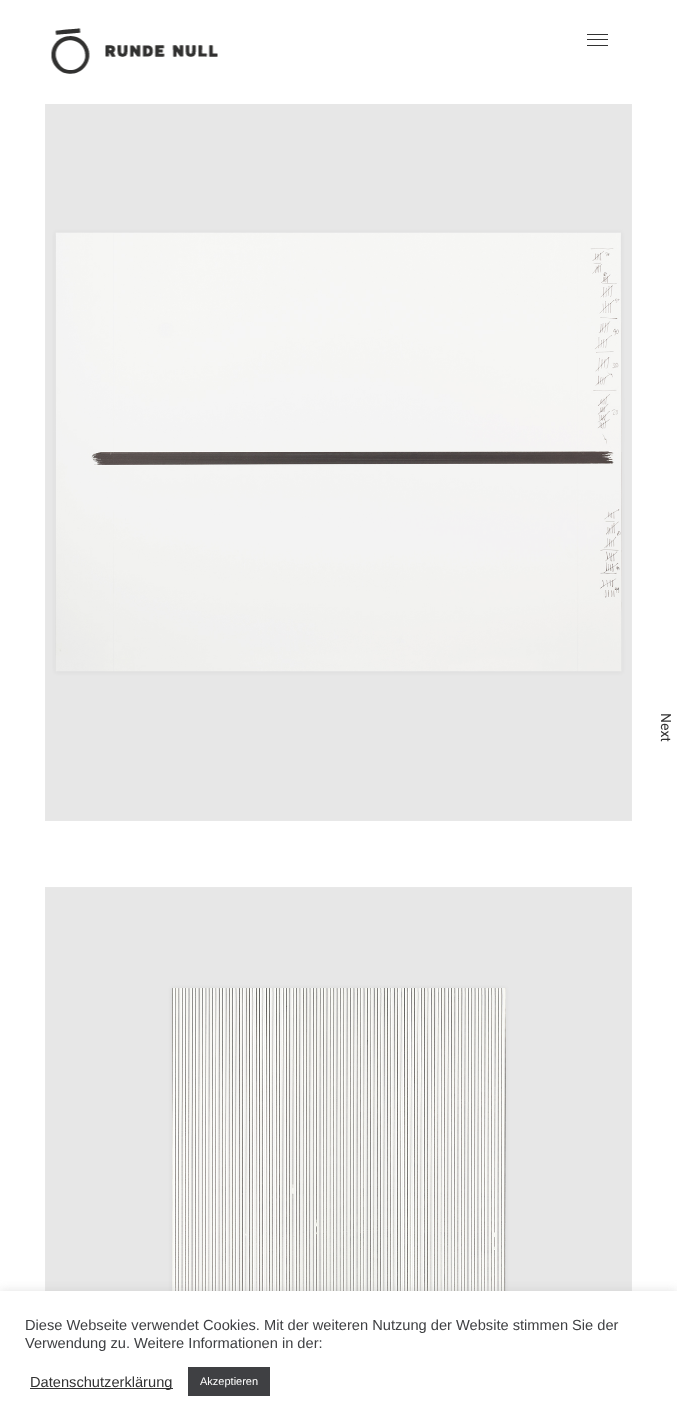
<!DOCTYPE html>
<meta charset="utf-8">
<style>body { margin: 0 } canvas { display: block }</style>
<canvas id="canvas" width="677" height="1426"></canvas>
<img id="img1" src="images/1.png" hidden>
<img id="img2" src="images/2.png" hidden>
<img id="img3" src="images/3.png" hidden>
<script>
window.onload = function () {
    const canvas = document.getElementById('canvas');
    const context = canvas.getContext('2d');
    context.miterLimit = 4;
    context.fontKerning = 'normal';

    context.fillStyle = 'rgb(255, 255, 255)';
    context.fillRect(0, 0, 677, 1426);
    context.drawImage(document.getElementById('img1'), 51, 28, 167, 46);
    context.fillStyle = 'rgb(50, 50, 50)';
    context.fillRect(587, 39, 21, 1);
    context.fillRect(587, 34, 21, 1);
    context.fillRect(587, 45, 21, 1);
    context.drawImage(document.getElementById('img2'), 45, 104, 587, 717);
    context.drawImage(document.getElementById('img3'), 45, 887, 587, 404);
    context.fillStyle = 'rgba(172, 171, 171, 0.3)';
    context.filter = 'blur(5px)';
    context.beginPath();
    context.rect(0, 1290, 677, 135);
    context.fill();
    context.filter = 'none';
    context.fillStyle = 'rgb(255, 255, 255)';
    context.fillRect(0, 1291, 677, 135);
    context.fillStyle = 'rgb(51, 51, 51)';
    context.fillRect(30, 1388, 143, 1);
    context.fillStyle = 'rgb(63, 64, 67)';
    context.fillRect(188, 1367, 82, 29);
    context.font = '14px Roboto';
    context.fillStyle = 'rgb(50, 50, 50)';
    context.save();
    context.translate(661, 713);
    context.rotate(90 * Math.PI / 180);
    context.fillText('Next', 0, 0);
    context.restore();
    context.font = '14.65px Liberation Sans';
    context.fillStyle = 'rgb(63, 64, 67)';
    context.fillText('Diese Webseite verwendet Cookies. Mit der weiteren Nutzung der Website stimmen Sie der', 25, 1330);
    context.fillText('Verwendung zu. Weitere Informationen in der:', 25, 1348);
    context.fillStyle = 'rgb(50, 50, 50)';
    context.fillText('Datenschutzerklärung', 30, 1387);
    context.font = '11px Liberation Sans';
    context.fillStyle = 'rgb(255, 255, 255)';
    context.fillText('Akzeptieren', 200, 1385);
};
</script>
